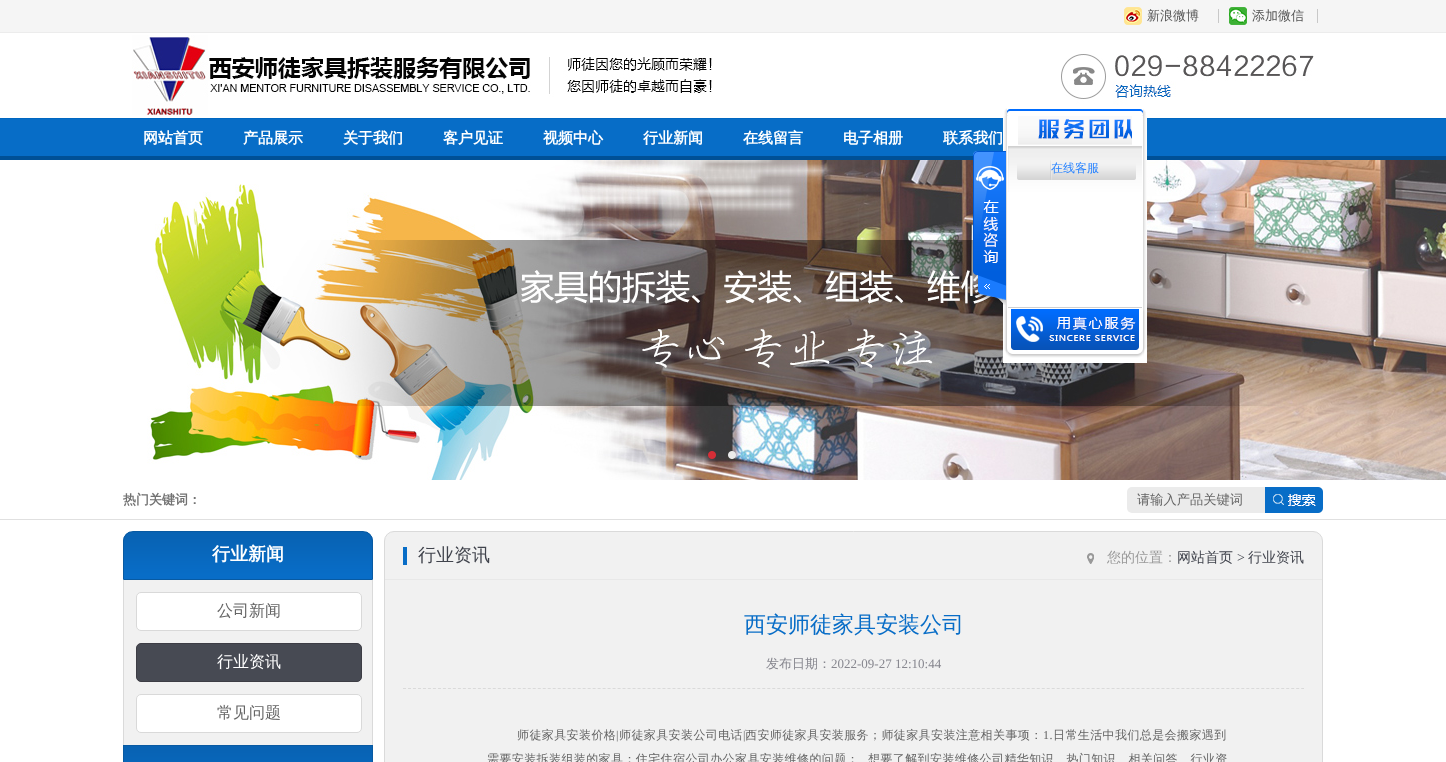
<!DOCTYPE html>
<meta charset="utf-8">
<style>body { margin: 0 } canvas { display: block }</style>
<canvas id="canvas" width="1446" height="762"></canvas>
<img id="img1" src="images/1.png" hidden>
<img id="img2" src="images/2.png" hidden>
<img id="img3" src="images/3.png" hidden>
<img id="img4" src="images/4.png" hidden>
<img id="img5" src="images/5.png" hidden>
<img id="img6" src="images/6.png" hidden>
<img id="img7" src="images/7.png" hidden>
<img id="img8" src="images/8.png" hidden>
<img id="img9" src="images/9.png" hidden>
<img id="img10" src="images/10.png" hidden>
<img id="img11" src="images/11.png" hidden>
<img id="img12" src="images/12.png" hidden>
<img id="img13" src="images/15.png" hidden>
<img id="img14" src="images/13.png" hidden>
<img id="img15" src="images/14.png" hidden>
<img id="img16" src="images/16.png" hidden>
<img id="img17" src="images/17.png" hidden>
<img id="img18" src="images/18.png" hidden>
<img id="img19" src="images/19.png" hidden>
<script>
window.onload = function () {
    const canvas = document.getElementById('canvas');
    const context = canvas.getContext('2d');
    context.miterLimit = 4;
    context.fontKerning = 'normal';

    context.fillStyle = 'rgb(255, 255, 255)';
    context.fillRect(0, 0, 1446, 762);
    context.fillStyle = 'rgb(245, 245, 245)';
    context.fillRect(0, 0, 1446, 32);
    context.fillStyle = 'rgb(236, 236, 236)';
    context.fillRect(0, 32, 1446, 1);
    context.fillStyle = 'rgb(200, 200, 200)';
    context.fillRect(1218, 9, 1, 14);
    context.drawImage(document.getElementById('img1'), 1124, 7, 18, 18);
    context.fillRect(1317, 9, 1, 14);
    context.drawImage(document.getElementById('img2'), 1229, 7, 18, 18);
    context.drawImage(document.getElementById('img3'), 132, 35, 580, 80);
    context.drawImage(document.getElementById('img4'), 1061, 54, 253, 51);
    context.drawImage(document.getElementById('img5'), 0, 118, 1446, 42);
    context.drawImage(document.getElementById('img6'), 0, 160, 1446, 320);
    context.drawImage(document.getElementById('img7'), 708, 451, 8, 8);
    context.drawImage(document.getElementById('img8'), 728, 451, 8, 8);
    context.fillStyle = 'rgb(224, 224, 224)';
    context.fillRect(0, 519, 1446, 1);
    context.fillStyle = 'rgb(235, 235, 235)';
    context.beginPath();
    context.roundRect(1127, 487, 138, 26, [5, 0, 0, 5]);
    context.fill();
    context.drawImage(document.getElementById('img9'), 1265, 487, 58, 26);
    context.drawImage(document.getElementById('img10'), 123, 532, 250, 47);
    context.beginPath();
    context.roundRect(123.5, 531.5, 249, 48, [9.5, 9.5, 0, 0]);
    context.strokeStyle = 'rgb(8, 90, 162)';
    context.stroke();
    context.fillStyle = 'rgb(241, 241, 241)';
    context.fillRect(124, 580, 248, 165);
    context.fillStyle = 'rgb(218, 218, 218)';
    context.fillRect(372, 580, 1, 165);
    context.fillRect(123, 580, 1, 165);
    context.fillStyle = 'rgb(255, 255, 255)';
    context.beginPath();
    context.roundRect(136.5, 592.5, 225, 38, 4.5);
    context.fill();
    context.strokeStyle = 'rgb(217, 217, 217)';
    context.stroke();
    context.fillStyle = 'rgb(71, 74, 83)';
    context.beginPath();
    context.roundRect(136.5, 643.5, 225, 38, 4.5);
    context.fill();
    context.strokeStyle = 'rgb(61, 61, 69)';
    context.stroke();
    context.fillStyle = 'rgb(255, 255, 255)';
    context.beginPath();
    context.roundRect(136.5, 694.5, 225, 38, 4.5);
    context.fill();
    context.strokeStyle = 'rgb(217, 217, 217)';
    context.stroke();
    context.drawImage(document.getElementById('img11'), 124, 746, 248, 16);
    context.strokeStyle = 'rgb(8, 90, 162)';
    context.strokeRect(123.5, 745.5, 249, 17);
    context.fillStyle = 'rgb(241, 241, 241)';
    context.beginPath();
    context.roundRect(384.5, 531.5, 938, 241, 9.5);
    context.fill();
    context.strokeStyle = 'rgb(218, 218, 218)';
    context.stroke();
    context.fillStyle = 'rgb(232, 232, 232)';
    context.fillRect(385, 579, 937, 1);
    context.fillStyle = 'rgb(8, 109, 199)';
    context.fillRect(403, 547, 4, 18);
    context.drawImage(document.getElementById('img12'), 1087, 553, 7, 11);
    context.beginPath();
    context.moveTo(403, 688.5);
    context.lineTo(1304, 688.5);
    context.setLineDash([3, 1.99]);
    context.stroke();
    context.drawImage(document.getElementById('img13'), 1003, 116, 144, 193);
    context.drawImage(document.getElementById('img14'), 973, 151, 33, 154);
    context.drawImage(document.getElementById('img15'), 1004, 108, 142, 8);
    context.drawImage(document.getElementById('img16'), 1018, 116, 114, 29);
    context.drawImage(document.getElementById('img17'), 1008, 146, 134, 46);
    context.fillStyle = 'rgb(208, 208, 208)';
    context.fillRect(1008, 307, 134, 1);
    context.drawImage(document.getElementById('img18'), 1017, 160, 119, 20);
    context.drawImage(document.getElementById('img19'), 1003, 309, 144, 54);
    context.font = '500 13px WenQuanYi Zen Hei';
    context.fillStyle = 'rgb(85, 85, 85)';
    context.fillText('新浪微博', 1147, 20);
    context.fillText('添加微信', 1252, 20);
    context.font = 'bold 15px WenQuanYi Zen Hei';
    context.fillStyle = 'rgb(255, 255, 255)';
    context.fillText('网站首页', 143, 143);
    context.fillText('产品展示', 243, 143);
    context.fillText('关于我们', 343, 143);
    context.fillText('客户见证', 443, 143);
    context.fillText('视频中心', 543, 143);
    context.fillText('行业新闻', 643, 143);
    context.fillText('在线留言', 743, 143);
    context.fillText('电子相册', 843, 143);
    context.fillText('联系我们', 943, 143);
    context.font = 'bold 13px WenQuanYi Zen Hei';
    context.fillStyle = 'rgb(115, 115, 115)';
    context.fillText('热门关键词：', 123, 504);
    context.font = '500 13.25px WenQuanYi Zen Hei';
    context.fillStyle = 'rgb(101, 101, 101)';
    context.fillText('请输入产品关键词', 1137, 504);
    context.font = 'bold 18px WenQuanYi Zen Hei';
    context.fillStyle = 'rgb(255, 255, 255)';
    context.fillText('行业新闻', 212, 560);
    context.font = '500 16px WenQuanYi Zen Hei';
    context.fillStyle = 'rgb(101, 101, 101)';
    context.fillText('公司新闻', 217, 616);
    context.fillStyle = 'rgb(255, 255, 255)';
    context.fillText('行业资讯', 217, 667);
    context.fillStyle = 'rgb(101, 101, 101)';
    context.fillText('常见问题', 217, 718);
    context.font = '500 18px WenQuanYi Zen Hei';
    context.fillStyle = 'rgb(65, 68, 77)';
    context.fillText('行业资讯', 418, 561);
    context.font = '500 14px WenQuanYi Zen Hei';
    context.fillStyle = 'rgb(154, 154, 154)';
    context.fillText('您的位置：', 1107, 562);
    context.fillStyle = 'rgb(65, 68, 77)';
    context.fillText('网站首页', 1177, 562);
    context.font = '14px Liberation Serif';
    context.fillText('>', 1237, 562);
    context.font = '500 14px WenQuanYi Zen Hei';
    context.fillText('行业资讯', 1248, 562);
    context.font = '500 22px WenQuanYi Zen Hei';
    context.fillStyle = 'rgb(8, 109, 199)';
    context.fillText('西安师徒家具安装公司', 744, 632);
    context.font = '500 13px WenQuanYi Zen Hei';
    context.fillStyle = 'rgb(135, 135, 143)';
    context.fillText('发布日期：', 766, 668);
    context.font = '13px Liberation Serif';
    context.fillText('2022-09-27 12:10:44', 831, 668);
    context.letterSpacing = '0.4px';
    context.font = '500 12px WenQuanYi Zen Hei';
    context.fillStyle = 'rgb(101, 101, 101)';
    context.fillText('师徒家具安装价格', 517, 739);
    context.font = '12px Liberation Serif';
    context.fillText('|', 616, 739);
    context.font = '500 12px WenQuanYi Zen Hei';
    context.fillText('师徒家具安装公司电话', 619, 739);
    context.font = '12px Liberation Serif';
    context.fillText('|', 743, 739);
    context.font = '500 12px WenQuanYi Zen Hei';
    context.fillText('西安师徒家具安装服务；师徒家具安装注意相关事项：', 745, 739);
    context.font = '12px Liberation Serif';
    context.fillText('1.', 1043, 739);
    context.font = '500 12px WenQuanYi Zen Hei';
    context.fillText('日常生活中我们总是会搬家遇到', 1053, 739);
    context.fillText('需要安装拆装组装的家具；住宅住宿公司办公家具安装维修的问题；', 487, 763);
    context.fillText('想要了解到安装维修公司精华知识、热门知识、相关问答、行业资', 868, 763);
    context.letterSpacing = '0px';
    context.fillStyle = 'rgb(38, 130, 255)';
    context.fillText('在线客服', 1051, 172);
};
</script>
